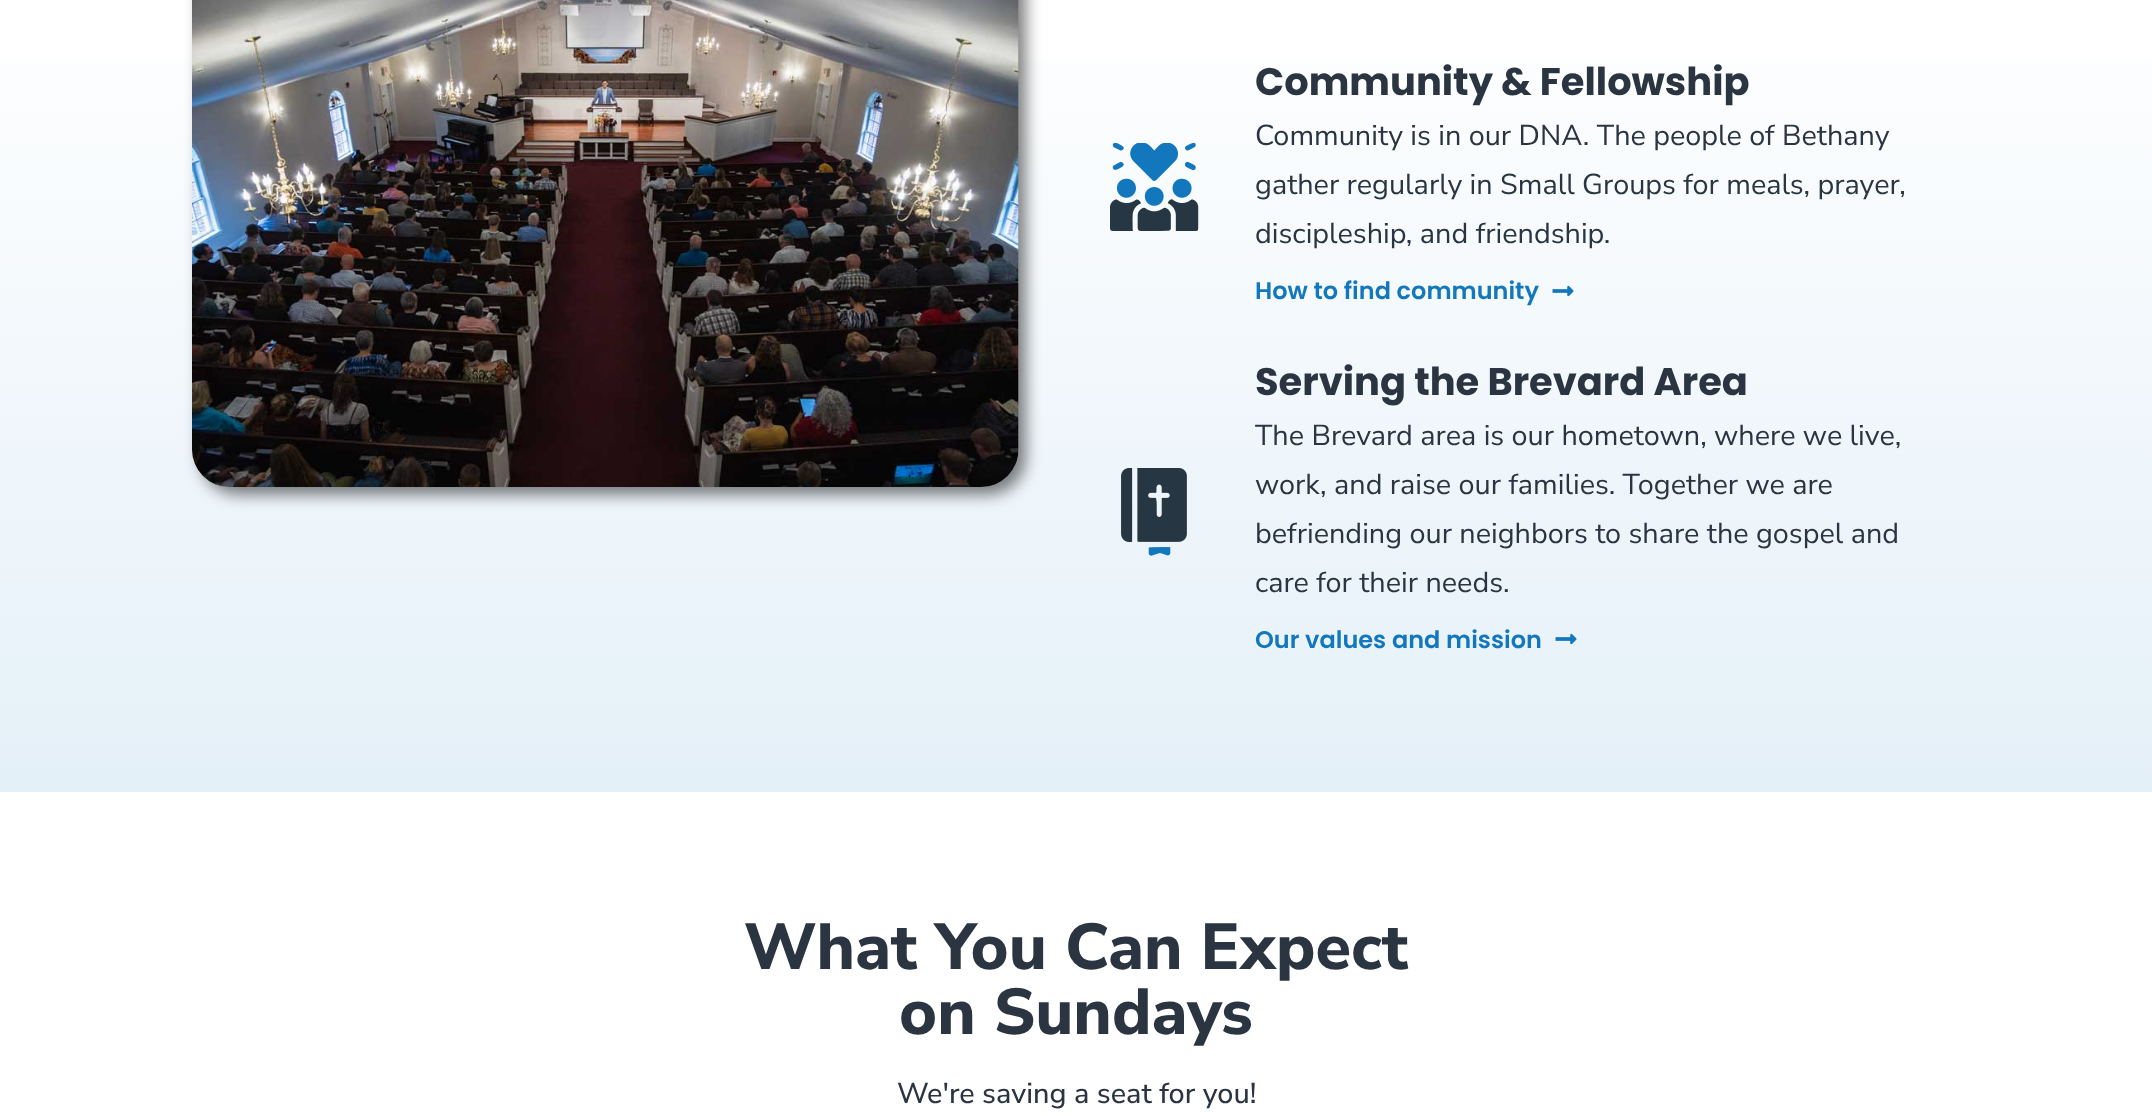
<!DOCTYPE html>
<meta charset="utf-8">
<style>body { margin: 0 } canvas { display: block }</style>
<canvas id="canvas" width="2152" height="1116"></canvas>
<img id="img1" src="images/1.png" hidden>
<img id="img2" src="images/2.png" hidden>
<img id="img3" src="images/3.png" hidden>
<img id="img4" src="images/4.png" hidden>
<img id="img5" src="images/5.png" hidden>
<script>
window.onload = function () {
    const canvas = document.getElementById('canvas');
    const context = canvas.getContext('2d');
    context.miterLimit = 4;
    context.fontKerning = 'normal';
    let gradient;

    context.fillStyle = 'rgb(255, 255, 255)';
    context.fillRect(0, 0, 2152, 1116);
    gradient = context.createLinearGradient(1076, -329, 1076, 792);
    gradient.addColorStop(0.28, 'rgb(255, 255, 255)');
    gradient.addColorStop(1, 'rgb(228, 240, 248)');
    context.fillStyle = gradient;
    context.fillRect(0, 60, 2152, 732);
    context.fillStyle = 'rgba(0, 0, 0, 0.5)';
    context.filter = 'blur(7.5px)';
    context.beginPath();
    context.roundRect(200, -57, 826, 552, 38);
    context.fill();
    context.filter = 'none';
    context.drawImage(document.getElementById('img1'), 192, 0, 827, 487);
    context.drawImage(document.getElementById('img2'), 1110, 143, 89, 88);
    context.drawImage(document.getElementById('img3'), 1552, 285, 22, 12);
    context.drawImage(document.getElementById('img4'), 1121, 468, 66, 88);
    context.drawImage(document.getElementById('img5'), 1555, 633, 22, 12);
    context.font = 'bold 38.4px Poppins';
    context.fillStyle = 'rgb(43, 53, 65)';
    context.fillText('Community & Fellowship', 1255, 95);
    context.font = '28.8px Nunito Sans';
    context.fillText('Community is in our DNA. The people of Bethany', 1255, 145);
    context.fillText('gather regularly in Small Groups for meals, prayer,', 1255, 194);
    context.fillText('discipleship, and friendship.', 1255, 243);
    context.font = '600 24px Poppins';
    context.fillStyle = 'rgb(19, 119, 189)';
    context.fillText('How to find community', 1255, 299);
    context.font = 'bold 38.4px Poppins';
    context.fillStyle = 'rgb(43, 53, 65)';
    context.fillText('Serving the Brevard Area', 1255, 395);
    context.font = '28.8px Nunito Sans';
    context.fillText('The Brevard area is our hometown, where we live,', 1255, 445);
    context.fillText('work, and raise our families. Together we are', 1255, 494);
    context.fillText('befriending our neighbors to share the gospel and', 1255, 543);
    context.fillText('care for their needs.', 1255, 592);
    context.font = '600 24px Poppins';
    context.fillStyle = 'rgb(19, 119, 189)';
    context.fillText('Our values and mission', 1255, 648);
    context.font = '800 64.75px Nunito Sans';
    context.fillStyle = 'rgb(43, 53, 65)';
    context.fillText('What You Can Expect', 744, 969);
    context.fillText('on Sundays', 899, 1034);
    context.font = '500 28.8px Nunito Sans';
    context.fillText('We\'re saving a seat for you!', 897, 1103);
};
</script>
